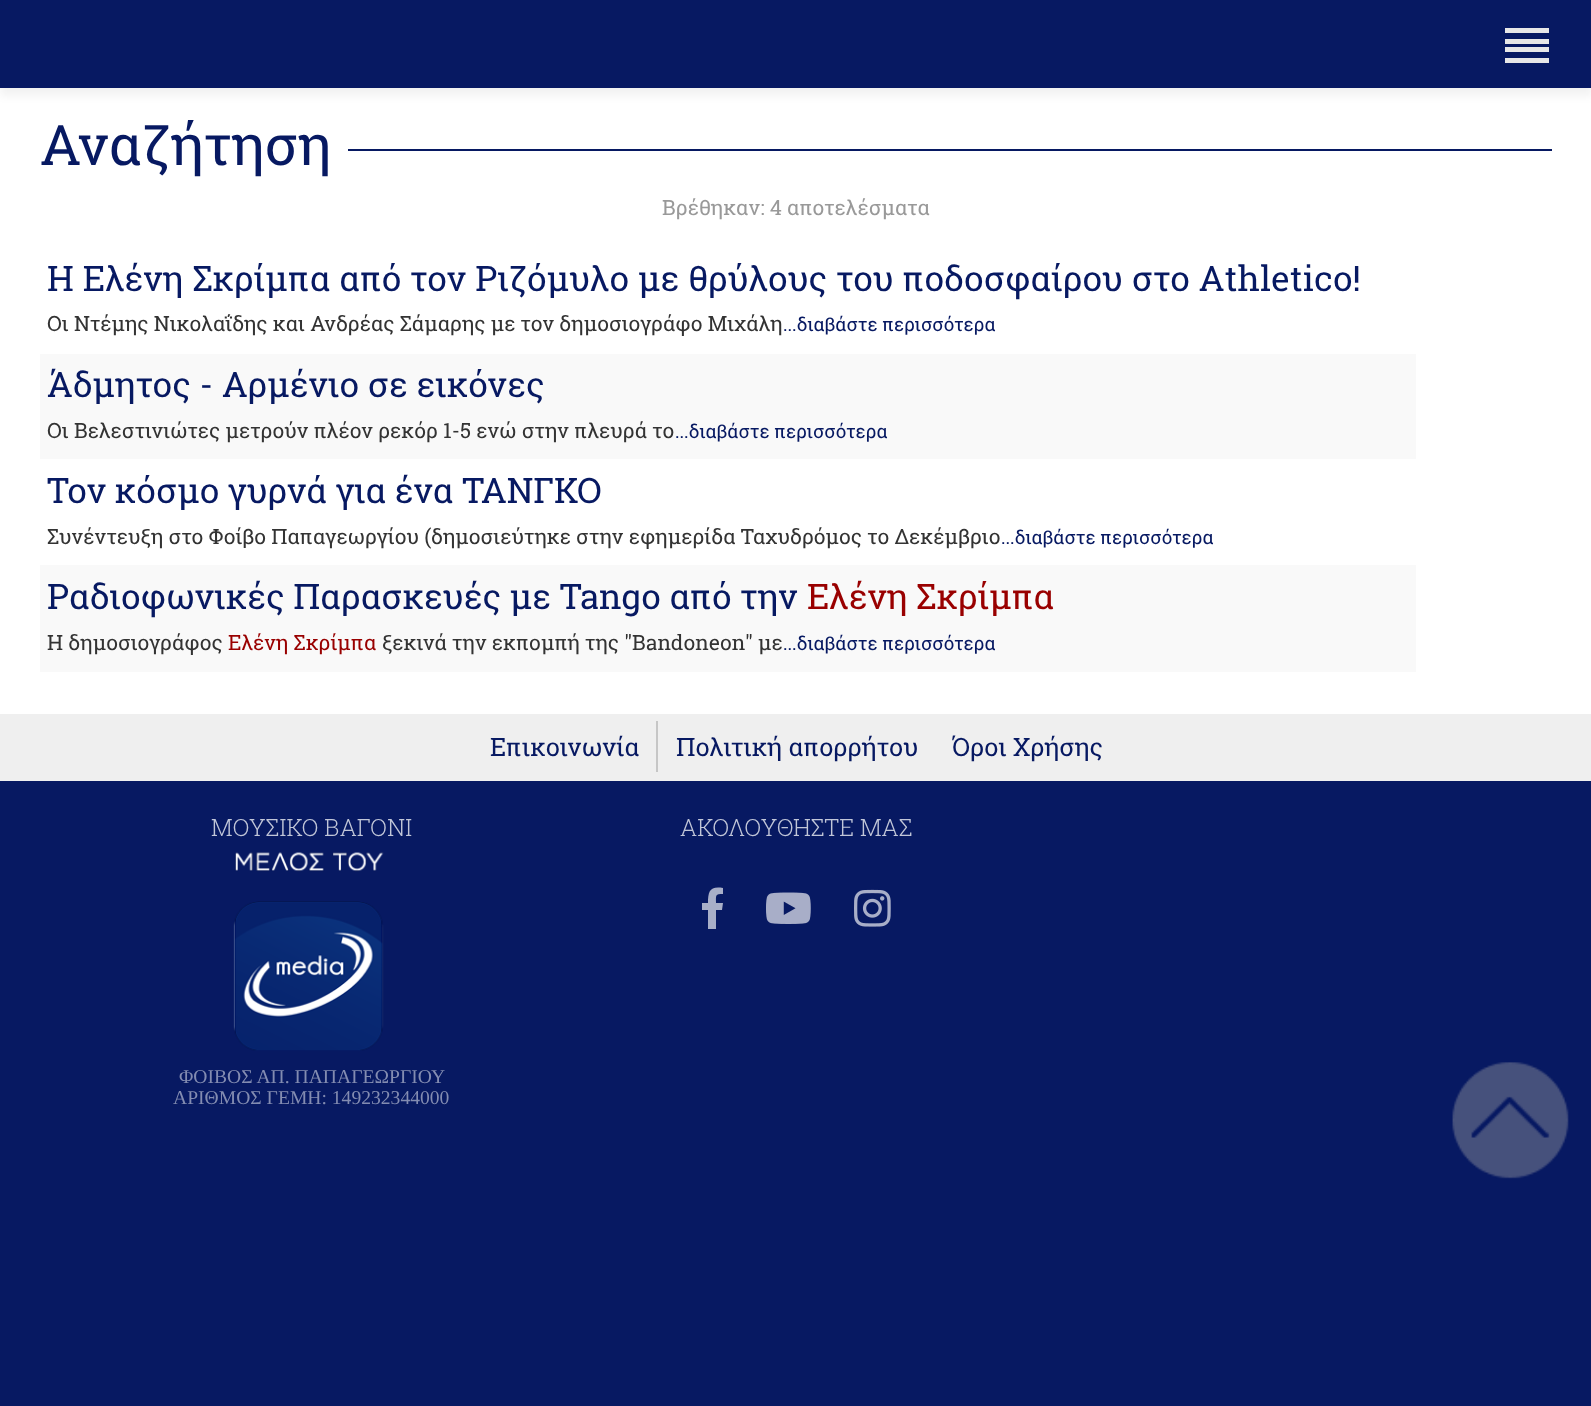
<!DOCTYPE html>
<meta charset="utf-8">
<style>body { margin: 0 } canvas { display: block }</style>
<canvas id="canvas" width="1591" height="1406"></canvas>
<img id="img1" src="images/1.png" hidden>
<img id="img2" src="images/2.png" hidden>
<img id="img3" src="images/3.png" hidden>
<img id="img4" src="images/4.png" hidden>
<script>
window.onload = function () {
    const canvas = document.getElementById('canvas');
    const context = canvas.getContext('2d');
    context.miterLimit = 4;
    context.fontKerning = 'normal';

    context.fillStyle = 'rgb(255, 255, 255)';
    context.fillRect(0, 0, 1591, 1406);
    context.fillStyle = 'rgba(0, 0, 0, 0.05)';
    context.filter = 'blur(4.5px)';
    context.beginPath();
    context.rect(0, 9, 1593, 87);
    context.fill();
    context.filter = 'none';
    context.fillStyle = 'rgb(7, 25, 98)';
    context.fillRect(0, 0, 1591, 88);
    context.fillStyle = 'rgb(231, 231, 231)';
    context.fillRect(1505, 28, 44, 5);
    context.fillRect(1505, 39, 44, 5);
    context.fillRect(1505, 47, 44, 5);
    context.fillRect(1505, 58, 44, 5);
    context.fillStyle = 'rgb(7, 25, 98)';
    context.fillRect(348, 149, 1204, 2);
    context.fillStyle = 'rgb(249, 249, 249)';
    context.fillRect(40, 354, 1376, 105);
    context.fillRect(40, 565, 1376, 107);
    context.fillStyle = 'rgb(7, 25, 98)';
    context.fillRect(0, 781, 1591, 625);
    context.fillStyle = 'rgb(239, 239, 239)';
    context.fillRect(0, 714, 1591, 67);
    context.fillStyle = 'rgb(198, 198, 198)';
    context.fillRect(656, 721, 2, 51);
    context.drawImage(document.getElementById('img1'), 233, 852, 151, 199);
    context.fillStyle = 'rgb(168, 175, 200)';
    context.beginPath();
    context.moveTo(708, 929);
    context.lineTo(708, 910);
    context.lineTo(702, 910);
    context.lineTo(702, 903);
    context.lineTo(708, 903);
    context.bezierCurveTo(708, 891, 710, 886, 723, 888);
    context.lineTo(723, 894);
    context.bezierCurveTo(715, 894, 716, 895, 716, 903);
    context.lineTo(723, 903);
    context.lineTo(722, 910);
    context.lineTo(716, 910);
    context.lineTo(716, 929);
    context.closePath();
    context.fill();
    context.drawImage(document.getElementById('img2'), 766, 892, 45, 32);
    context.drawImage(document.getElementById('img3'), 854, 889, 37, 38);
    context.drawImage(document.getElementById('img4'), 1452, 1062, 117, 117);
    context.font = '56px Roboto Slab';
    context.fillStyle = 'rgb(7, 25, 98)';
    context.fillText('Αναζήτηση', 40, 165);
    context.font = '21px Roboto Slab';
    context.fillStyle = 'rgb(153, 153, 153)';
    context.fillText('Βρέθηκαν: 4 αποτελέσματα', 662, 215);
    context.wordSpacing = '0.25px';
    context.font = '35px Roboto Slab';
    context.fillStyle = 'rgb(7, 25, 98)';
    context.fillText('H Eλένη Σκρίμπα από τον Ριζόμυλο με θρύλους του ποδοσφαίρου στο Αthletico!', 47, 291);
    context.wordSpacing = '0px';
    context.font = '21px Roboto Slab';
    context.fillStyle = 'rgb(51, 51, 51)';
    context.fillText('Οι Ντέμης Νικολαΐδης και Ανδρέας Σάμαρης με τον δημοσιογράφο Μιχάλη', 47, 331);
    context.font = '18.9px Roboto Slab';
    context.fillStyle = 'rgb(7, 25, 98)';
    context.fillText('...διαβάστε περισσότερα', 783, 331);
    context.font = '35px Roboto Slab';
    context.fillText('Άδμητος - Αρμένιο σε εικόνες', 47, 397);
    context.font = '21px Roboto Slab';
    context.fillStyle = 'rgb(51, 51, 51)';
    context.fillText('Οι Βελεστινιώτες μετρούν πλέον ρεκόρ 1-5 ενώ στην πλευρά το', 47, 438);
    context.font = '18.9px Roboto Slab';
    context.fillStyle = 'rgb(7, 25, 98)';
    context.fillText('...διαβάστε περισσότερα', 675, 438);
    context.font = '35px Roboto Slab';
    context.fillText('Τον κόσμο γυρνά για ένα ΤΑΝΓΚΟ', 47, 503);
    context.font = '21px Roboto Slab';
    context.fillStyle = 'rgb(51, 51, 51)';
    context.fillText('Συνέντευξη στο Φοίβο Παπαγεωργίου (δημοσιεύτηκε στην εφημερίδα Ταχυδρόμος το Δεκέμβριο', 47, 544);
    context.font = '18.9px Roboto Slab';
    context.fillStyle = 'rgb(7, 25, 98)';
    context.fillText('...διαβάστε περισσότερα', 1001, 544);
    context.font = '35px Roboto Slab';
    context.fillText('Ραδιοφωνικές Παρασκευές με Tango από την', 47, 609);
    context.fillStyle = 'rgb(153, 0, 0)';
    context.fillText('Ελένη Σκρίμπα', 807, 609);
    context.font = '21px Roboto Slab';
    context.fillStyle = 'rgb(51, 51, 51)';
    context.fillText('Η δημοσιογράφος', 47, 650);
    context.fillStyle = 'rgb(153, 0, 0)';
    context.fillText('Ελένη Σκρίμπα', 228, 650);
    context.fillStyle = 'rgb(51, 51, 51)';
    context.fillText('ξεκινά την εκπομπή της "Bandoneon" με', 382, 650);
    context.font = '18.9px Roboto Slab';
    context.fillStyle = 'rgb(7, 25, 98)';
    context.fillText('...διαβάστε περισσότερα', 783, 650);
    context.font = '25.25px Roboto Slab';
    context.fillText('Επικοινωνία', 490, 756);
    context.fillText('Πολιτική απορρήτου', 676, 756);
    context.fillText('Όροι Χρήσης', 952, 756);
    context.font = '300 23.75px Roboto Slab';
    context.fillStyle = 'rgb(193, 198, 216)';
    context.fillText('ΜΟΥΣΙΚΟ ΒΑΓΟΝΙ', 211, 836);
    context.font = '19.6px Liberation Serif';
    context.fillStyle = 'rgb(131, 140, 177)';
    context.fillText('ΦΟΙΒΟΣ ΑΠ. ΠΑΠΑΓΕΩΡΓΙΟΥ', 179, 1083);
    context.fillText('ΑΡΙΘΜΟΣ ΓΕΜΗ: 149232344000', 173, 1104);
    context.font = '300 23.75px Roboto Slab';
    context.fillStyle = 'rgb(193, 198, 216)';
    context.fillText('ΑΚΟΛΟΥΘΗΣΤΕ ΜΑΣ', 680, 836);
};
</script>
